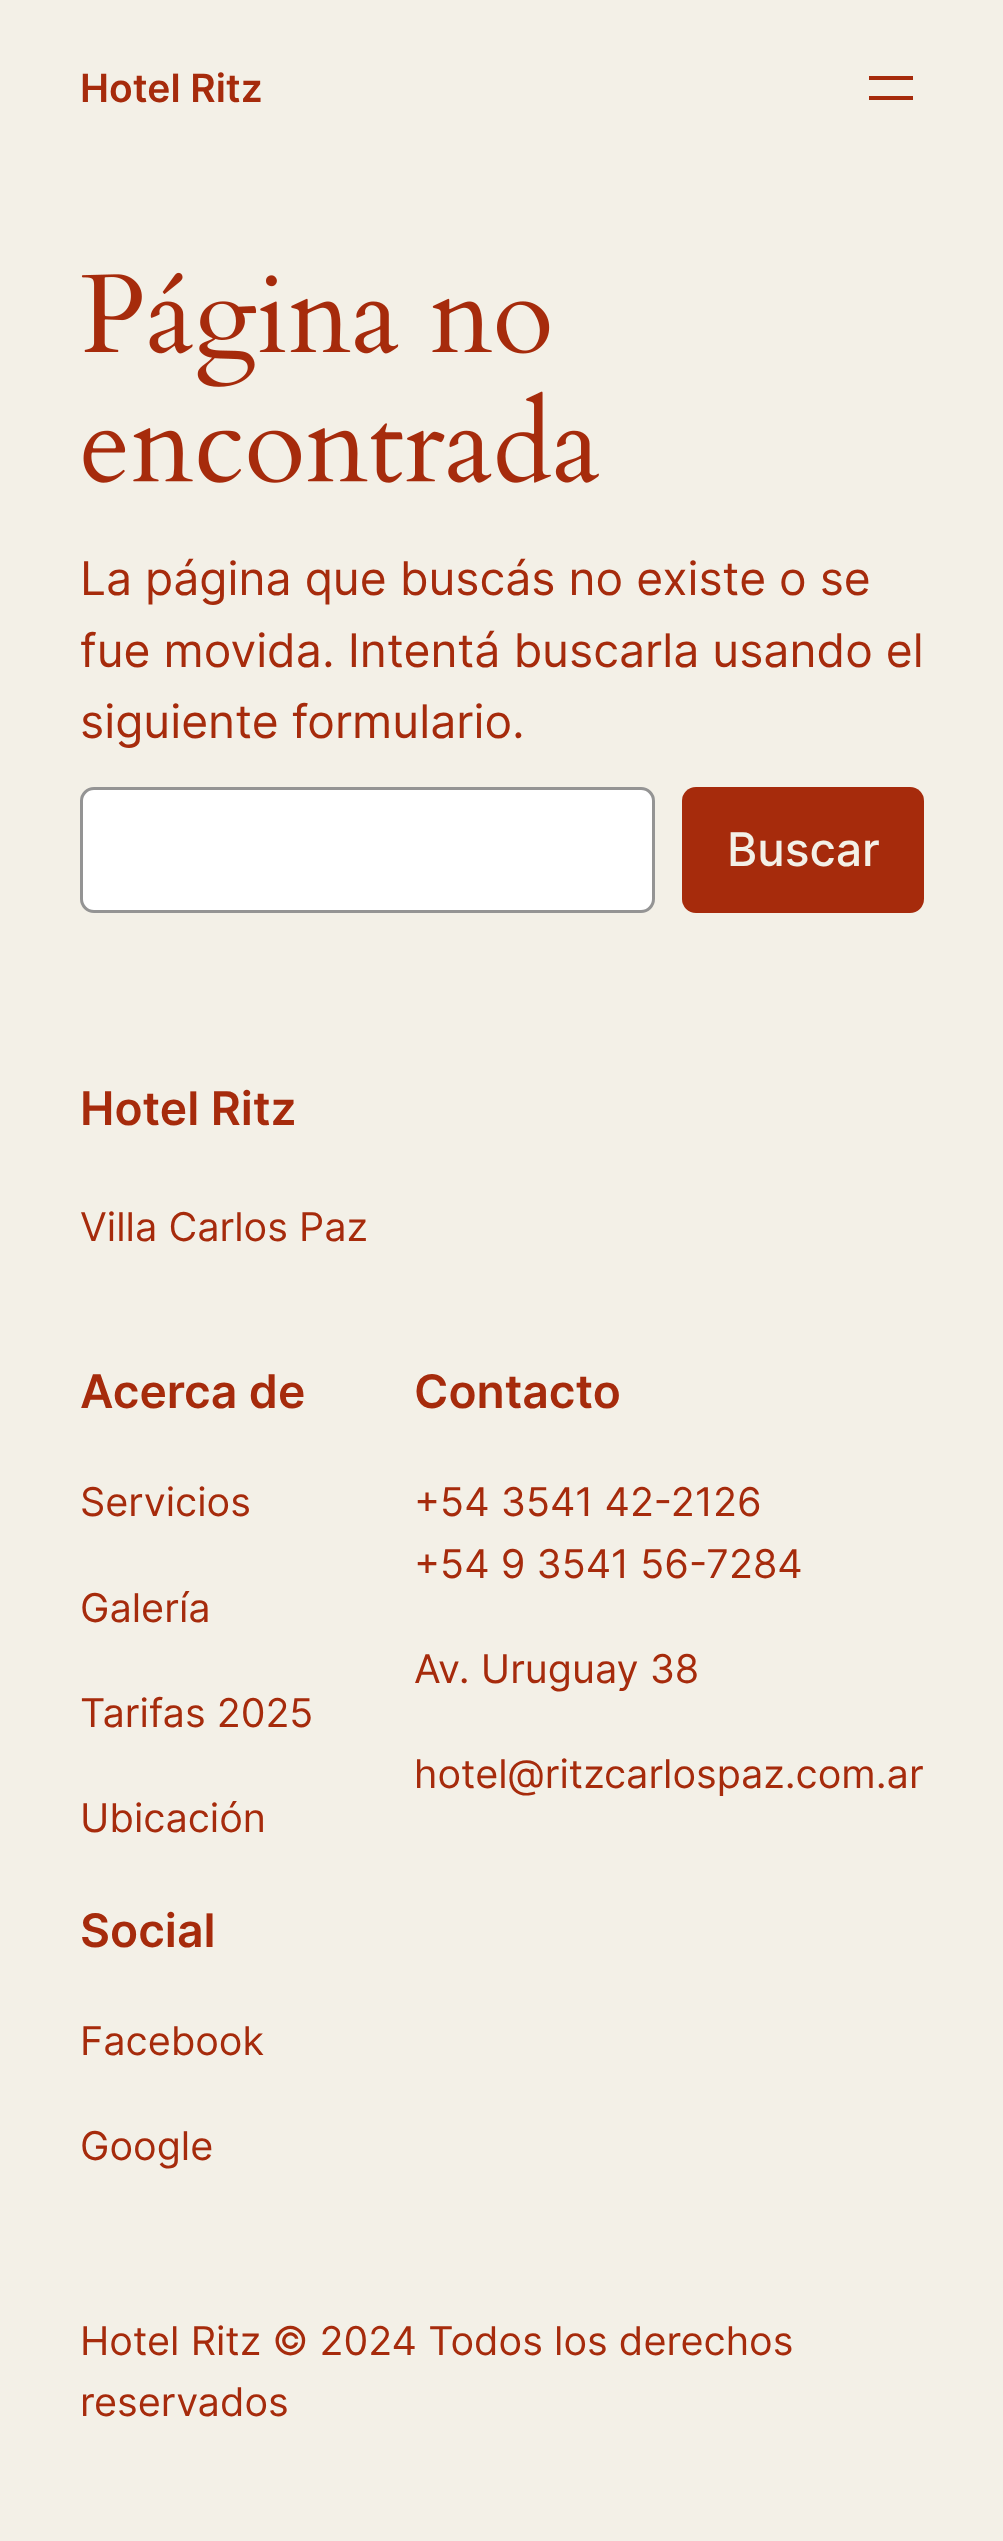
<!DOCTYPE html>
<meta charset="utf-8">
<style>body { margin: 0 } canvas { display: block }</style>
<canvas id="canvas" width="1003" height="2541"></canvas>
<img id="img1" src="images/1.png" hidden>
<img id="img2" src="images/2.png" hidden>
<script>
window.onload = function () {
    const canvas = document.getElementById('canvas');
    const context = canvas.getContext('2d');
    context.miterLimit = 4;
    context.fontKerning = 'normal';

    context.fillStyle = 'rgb(243, 240, 231)';
    context.fillRect(0, 0, 1003, 2541);
    context.fillStyle = 'rgb(166, 43, 12)';
    context.fillRect(869, 76, 44, 4);
    context.fillRect(869, 96, 44, 4);
    context.drawImage(document.getElementById('img1'), 81, 272, 469, 115);
    context.drawImage(document.getElementById('img2'), 83, 391, 516, 92);
    context.fillStyle = 'rgb(255, 255, 255)';
    context.beginPath();
    context.roundRect(81.5, 788.5, 572, 123, 12.5);
    context.fill();
    context.strokeStyle = 'rgb(148, 148, 148)';
    context.lineWidth = 3;
    context.stroke();
    context.fillStyle = 'rgb(166, 43, 12)';
    context.beginPath();
    context.roundRect(682, 787, 242, 126, 14);
    context.fill();
    context.font = '600 39px Inter';
    context.fillText('Hotel Ritz', 80, 102);
    context.font = '46.25px Inter';
    context.fillText('La página que buscás no existe o se', 80, 595);
    context.fillText('fue movida. Intentá buscarla usando el', 80, 667);
    context.fillText('siguiente formulario.', 80, 738);
    context.font = '500 46.25px Inter';
    context.fillStyle = 'rgb(243, 240, 231)';
    context.fillText('Buscar', 727, 866);
    context.font = '600 46.25px Inter';
    context.fillStyle = 'rgb(166, 43, 12)';
    context.fillText('Hotel Ritz', 80, 1125);
    context.font = '39.6px Inter';
    context.fillText('Villa Carlos Paz', 80, 1241);
    context.font = '600 46.25px Inter';
    context.fillText('Acerca de', 80, 1408);
    context.font = '39.6px Inter';
    context.fillText('Servicios', 80, 1516);
    context.fillText('Galería', 80, 1622);
    context.fillText('Tarifas 2025', 80, 1727);
    context.fillText('Ubicación', 80, 1832);
    context.font = '600 46.25px Inter';
    context.fillText('Contacto', 414, 1408);
    context.font = '39.6px Inter';
    context.fillText('+54 3541 42-2126', 414, 1516);
    context.fillText('+54 9 3541 56-7284', 414, 1578);
    context.fillText('Av. Uruguay 38', 414, 1683);
    context.fillText('hotel@ritzcarlospaz.com.ar', 414, 1788);
    context.font = '600 46.25px Inter';
    context.fillText('Social', 80, 1947);
    context.font = '39.6px Inter';
    context.fillText('Facebook', 80, 2055);
    context.fillText('Google', 80, 2160);
    context.fillText('Hotel Ritz © 2024 Todos los derechos', 80, 2355);
    context.fillText('reservados', 80, 2416);
};
</script>
